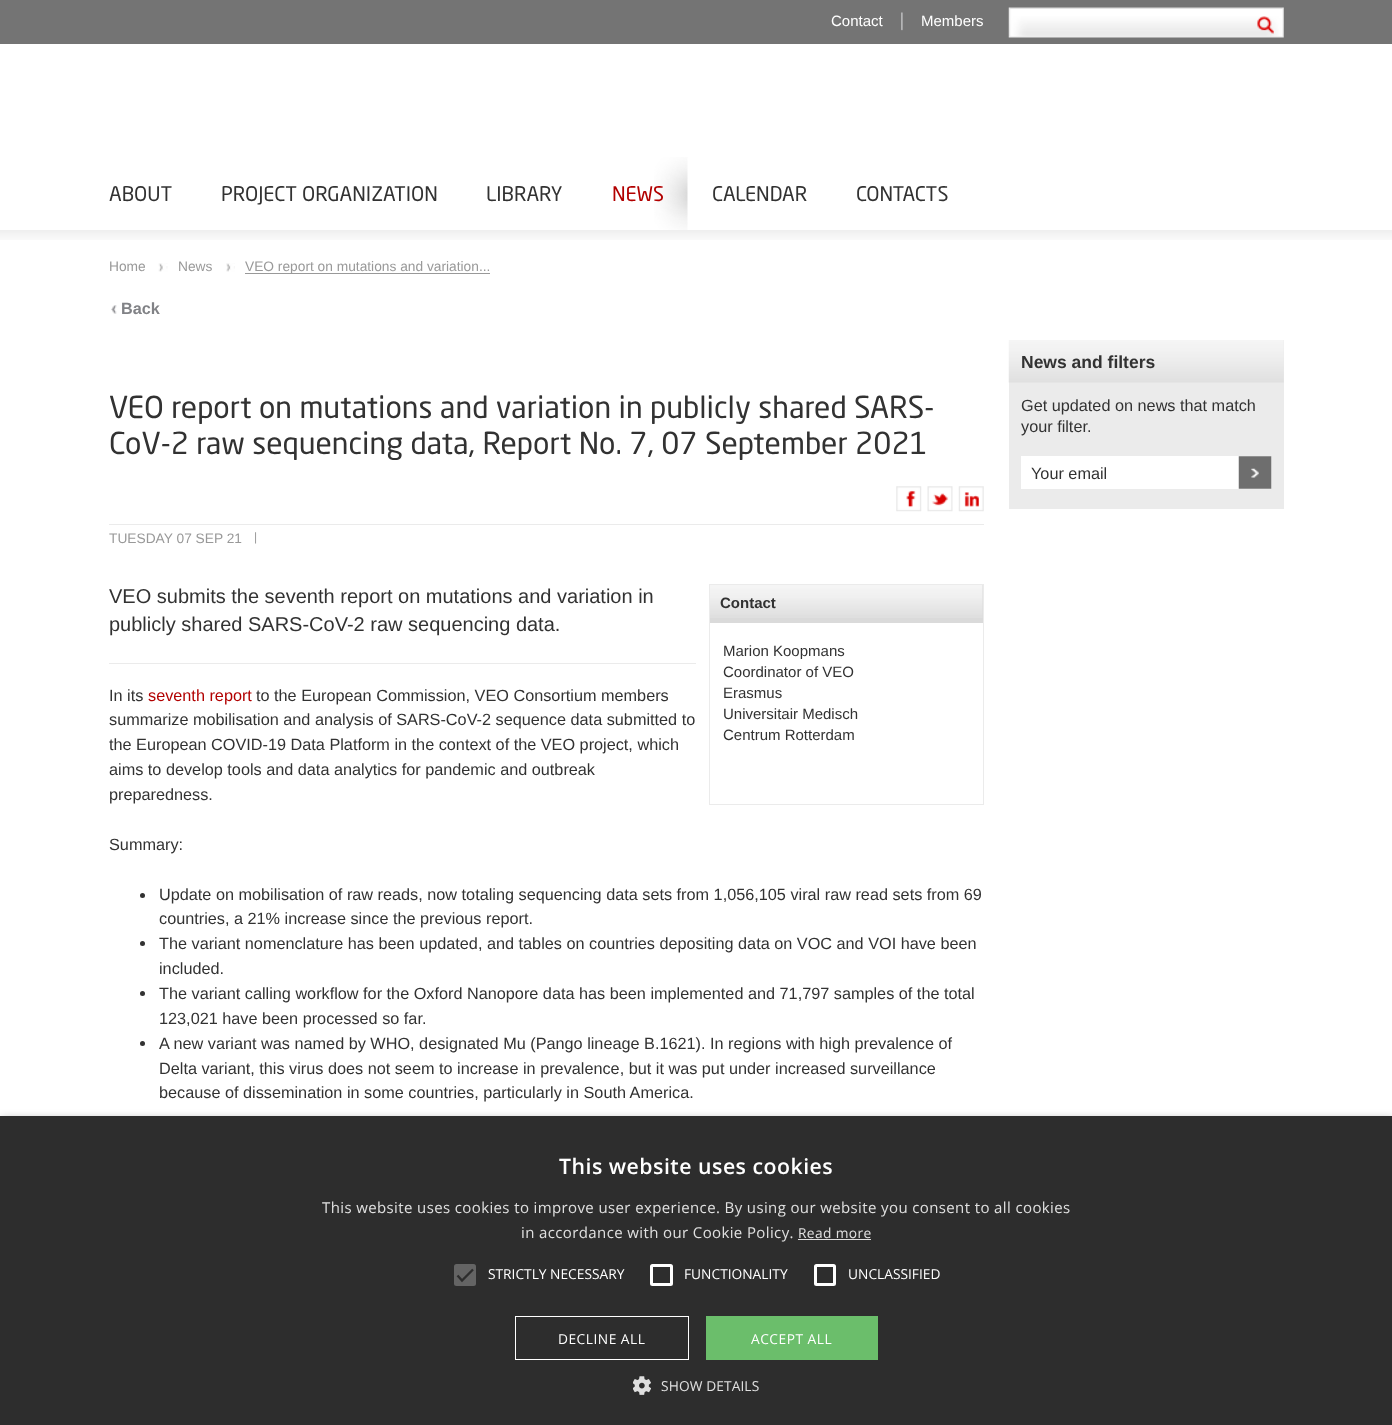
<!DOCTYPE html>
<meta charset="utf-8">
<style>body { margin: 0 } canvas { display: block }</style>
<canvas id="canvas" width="1392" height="1425"></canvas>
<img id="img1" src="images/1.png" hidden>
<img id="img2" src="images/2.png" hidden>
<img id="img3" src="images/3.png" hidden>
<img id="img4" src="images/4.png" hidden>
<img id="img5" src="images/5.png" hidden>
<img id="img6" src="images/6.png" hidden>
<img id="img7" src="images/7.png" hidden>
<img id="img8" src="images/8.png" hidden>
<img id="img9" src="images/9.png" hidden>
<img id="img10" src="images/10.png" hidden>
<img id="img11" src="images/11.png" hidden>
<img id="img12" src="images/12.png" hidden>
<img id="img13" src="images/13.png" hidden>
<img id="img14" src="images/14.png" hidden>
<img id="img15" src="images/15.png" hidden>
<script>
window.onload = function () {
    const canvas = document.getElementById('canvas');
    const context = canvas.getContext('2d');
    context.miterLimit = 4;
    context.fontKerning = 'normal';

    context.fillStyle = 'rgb(255, 255, 255)';
    context.fillRect(0, 0, 1392, 1425);
    context.fillStyle = 'rgb(116, 116, 116)';
    context.fillRect(0, 0, 1392, 44);
    context.drawImage(document.getElementById('img1'), 901, 12, 2, 19);
    context.drawImage(document.getElementById('img2'), 1008, 7, 276, 31);
    context.drawImage(document.getElementById('img3'), 1257, 16, 17, 18);
    context.drawImage(document.getElementById('img4'), 654, 157, 34, 73);
    context.drawImage(document.getElementById('img5'), 0, 230, 1392, 10);
    context.drawImage(document.getElementById('img6'), 158, 263, 10, 9);
    context.drawImage(document.getElementById('img7'), 226, 263, 9, 9);
    context.fillStyle = 'rgb(153, 153, 153)';
    context.fillRect(245, 273, 245, 1);
    context.drawImage(document.getElementById('img8'), 111, 305, 6, 9);
    context.fillStyle = 'rgb(235, 235, 235)';
    context.fillRect(109, 524, 875, 1);
    context.drawImage(document.getElementById('img9'), 896, 486, 26, 26);
    context.drawImage(document.getElementById('img10'), 927, 486, 26, 26);
    context.drawImage(document.getElementById('img11'), 958, 486, 26, 26);
    context.fillRect(109, 663, 587, 1);
    context.strokeStyle = 'rgb(235, 235, 235)';
    context.strokeRect(709.5, 584.5, 274, 220);
    context.fillStyle = 'rgb(218, 218, 218)';
    context.fillRect(710, 585, 273, 38);
    context.drawImage(document.getElementById('img12'), 710, 585, 273, 33);
    context.fillStyle = 'rgb(50, 50, 50)';
    context.beginPath();
    context.arc(142.5, 895.5, 2.5, 0, 2 * Math.PI);
    context.fill();
    context.beginPath();
    context.arc(142.5, 943.5, 2.5, 0, 2 * Math.PI);
    context.fill();
    context.beginPath();
    context.arc(142.5, 993.5, 2.5, 0, 2 * Math.PI);
    context.fill();
    context.beginPath();
    context.arc(142.5, 1043.5, 2.5, 0, 2 * Math.PI);
    context.fill();
    context.fillStyle = 'rgb(235, 235, 235)';
    context.fillRect(1009, 340, 275, 169);
    context.drawImage(document.getElementById('img13'), 1008, 340, 276, 43);
    context.fillStyle = 'rgb(255, 255, 255)';
    context.fillRect(1021, 456, 250, 33);
    context.drawImage(document.getElementById('img14'), 1238, 456, 34, 33);
    context.fillStyle = 'rgba(0, 0, 0, 0.35)';
    context.filter = 'blur(5px)';
    context.beginPath();
    context.rect(1, 1119, 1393, 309);
    context.fill();
    context.filter = 'none';
    context.fillStyle = 'rgb(45, 45, 45)';
    context.fillRect(0, 1116, 1392, 309);
    context.fillStyle = 'rgb(224, 224, 224)';
    context.fillRect(798, 1239, 73, 1);
    context.fillStyle = 'rgb(100, 100, 100)';
    context.beginPath();
    context.roundRect(454, 1264, 22, 22, 2.5);
    context.fill();
    context.beginPath();
    context.moveTo(457.5, 1275.5);
    context.lineTo(462, 1280.5);
    context.lineTo(473, 1269.5);
    context.strokeStyle = 'rgb(45, 45, 45)';
    context.lineWidth = 2.3;
    context.stroke();
    context.beginPath();
    context.roundRect(651.5, 1265.5, 20, 19, 1);
    context.strokeStyle = 'rgb(255, 255, 255)';
    context.lineWidth = 3;
    context.stroke();
    context.beginPath();
    context.roundRect(815.5, 1265.5, 19, 19, 1);
    context.stroke();
    context.lineWidth = 1;
    context.strokeRect(515.5, 1316.5, 173, 43);
    context.fillStyle = 'rgb(107, 190, 107)';
    context.fillRect(706, 1316, 172, 44);
    context.drawImage(document.getElementById('img15'), 633, 1376, 18, 19);
    context.font = '15px Liberation Sans';
    context.fillStyle = 'rgb(255, 255, 255)';
    context.fillText('Contact', 831, 26);
    context.fillText('Members', 921, 26);
    context.font = '20px "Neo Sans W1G"';
    context.fillStyle = 'rgb(50, 50, 50)';
    context.fillText('ABOUT', 109, 201);
    context.fillText('PROJECT ORGANIZATION', 221, 201);
    context.fillText('LIBRARY', 486, 201);
    context.fillStyle = 'rgb(178, 0, 0)';
    context.fillText('NEWS', 612, 201);
    context.fillStyle = 'rgb(50, 50, 50)';
    context.fillText('CALENDAR', 712, 201);
    context.fillText('CONTACTS', 856, 201);
    context.font = '13.75px Liberation Sans';
    context.fillStyle = 'rgb(153, 153, 153)';
    context.fillText('Home', 109, 271);
    context.fillText('News', 178, 271);
    context.fillText('VEO report on mutations and variation...', 245, 271);
    context.font = 'bold 16.25px Liberation Sans';
    context.fillStyle = 'rgb(129, 130, 134)';
    context.fillText('Back', 121, 314);
    context.font = '30px "Neo Sans W1G"';
    context.fillStyle = 'rgb(50, 50, 50)';
    context.fillText('VEO report on mutations and variation in publicly shared SARS-', 109, 418);
    context.fillText('CoV-2 raw sequencing data, Report No. 7, 07 September 2021', 109, 454);
    context.font = '13.75px Liberation Sans';
    context.fillStyle = 'rgb(153, 153, 153)';
    context.fillText('TUESDAY 07 SEP 21', 109, 543);
    context.font = '12px Liberation Sans';
    context.fillText('|', 254, 541);
    context.font = '20px Liberation Sans';
    context.fillStyle = 'rgb(50, 50, 50)';
    context.fillText('VEO submits the seventh report on mutations and variation in', 109, 603);
    context.fillText('publicly shared SARS-CoV-2 raw sequencing data.', 109, 631);
    context.font = 'bold 15px Liberation Sans';
    context.fillText('Contact', 720, 608);
    context.font = '15px Liberation Sans';
    context.fillText('Marion Koopmans', 723, 656);
    context.fillText('Coordinator of VEO', 723, 677);
    context.fillText('Erasmus', 723, 698);
    context.fillText('Universitair Medisch', 723, 719);
    context.fillText('Centrum Rotterdam', 723, 740);
    context.font = '16.25px Liberation Sans';
    context.fillText('In its', 109, 701);
    context.fillStyle = 'rgb(178, 0, 0)';
    context.fillText('seventh report', 148, 701);
    context.fillStyle = 'rgb(50, 50, 50)';
    context.fillText('to the European Commission, VEO Consortium members', 256, 701);
    context.fillText('summarize mobilisation and analysis of SARS-CoV-2 sequence data submitted to', 109, 725);
    context.fillText('the European COVID-19 Data Platform in the context of the VEO project, which', 109, 750);
    context.fillText('aims to develop tools and data analytics for pandemic and outbreak', 109, 775);
    context.fillText('preparedness.', 109, 800);
    context.fillText('Summary:', 109, 850);
    context.fillText('Update on mobilisation of raw reads, now totaling sequencing data sets from 1,056,105 viral raw read sets from 69', 159, 900);
    context.fillText('countries, a 21% increase since the previous report.', 159, 924);
    context.fillText('The variant nomenclature has been updated, and tables on countries depositing data on VOC and VOI have been', 159, 949);
    context.fillText('included.', 159, 974);
    context.fillText('The variant calling workflow for the Oxford Nanopore data has been implemented and 71,797 samples of the total', 159, 999);
    context.fillText('123,021 have been processed so far.', 159, 1024);
    context.fillText('A new variant was named by WHO, designated Mu (Pango lineage B.1621). In regions with high prevalence of', 159, 1049);
    context.fillText('Delta variant, this virus does not seem to increase in prevalence, but it was put under increased surveillance', 159, 1074);
    context.fillText('because of dissemination in some countries, particularly in South America.', 159, 1098);
    context.font = 'bold 17.5px Liberation Sans';
    context.fillText('News and filters', 1021, 368);
    context.font = '16.25px Liberation Sans';
    context.fillText('Get updated on news that match', 1021, 411);
    context.fillText('your filter.', 1021, 432);
    context.fillText('Your email', 1031, 479);
    context.letterSpacing = '0.5px';
    context.font = '600 21.25px Open Sans';
    context.fillStyle = 'rgb(255, 255, 255)';
    context.fillText('This website uses cookies', 559, 1174);
    context.letterSpacing = '0.38px';
    context.font = '15px Open Sans';
    context.fillStyle = 'rgb(224, 224, 224)';
    context.fillText('This website uses cookies to improve user experience. By using our website you consent to all cookies', 322, 1213);
    context.fillText('in accordance with our Cookie Policy.', 521, 1238);
    context.font = '13.75px Open Sans';
    context.fillText('Read more', 798, 1238);
    context.letterSpacing = '0px';
    context.fillStyle = 'rgb(255, 255, 255)';
    context.fillText('STRICTLY NECESSARY', 488, 1279);
    context.fillText('FUNCTIONALITY', 684, 1279);
    context.fillText('UNCLASSIFIED', 848, 1279);
    context.letterSpacing = '0.5px';
    context.fillText('DECLINE ALL', 558, 1344);
    context.fillText('ACCEPT ALL', 751, 1344);
    context.letterSpacing = '0.1px';
    context.fillStyle = 'rgb(224, 224, 224)';
    context.fillText('SHOW DETAILS', 661, 1391);
};
</script>
